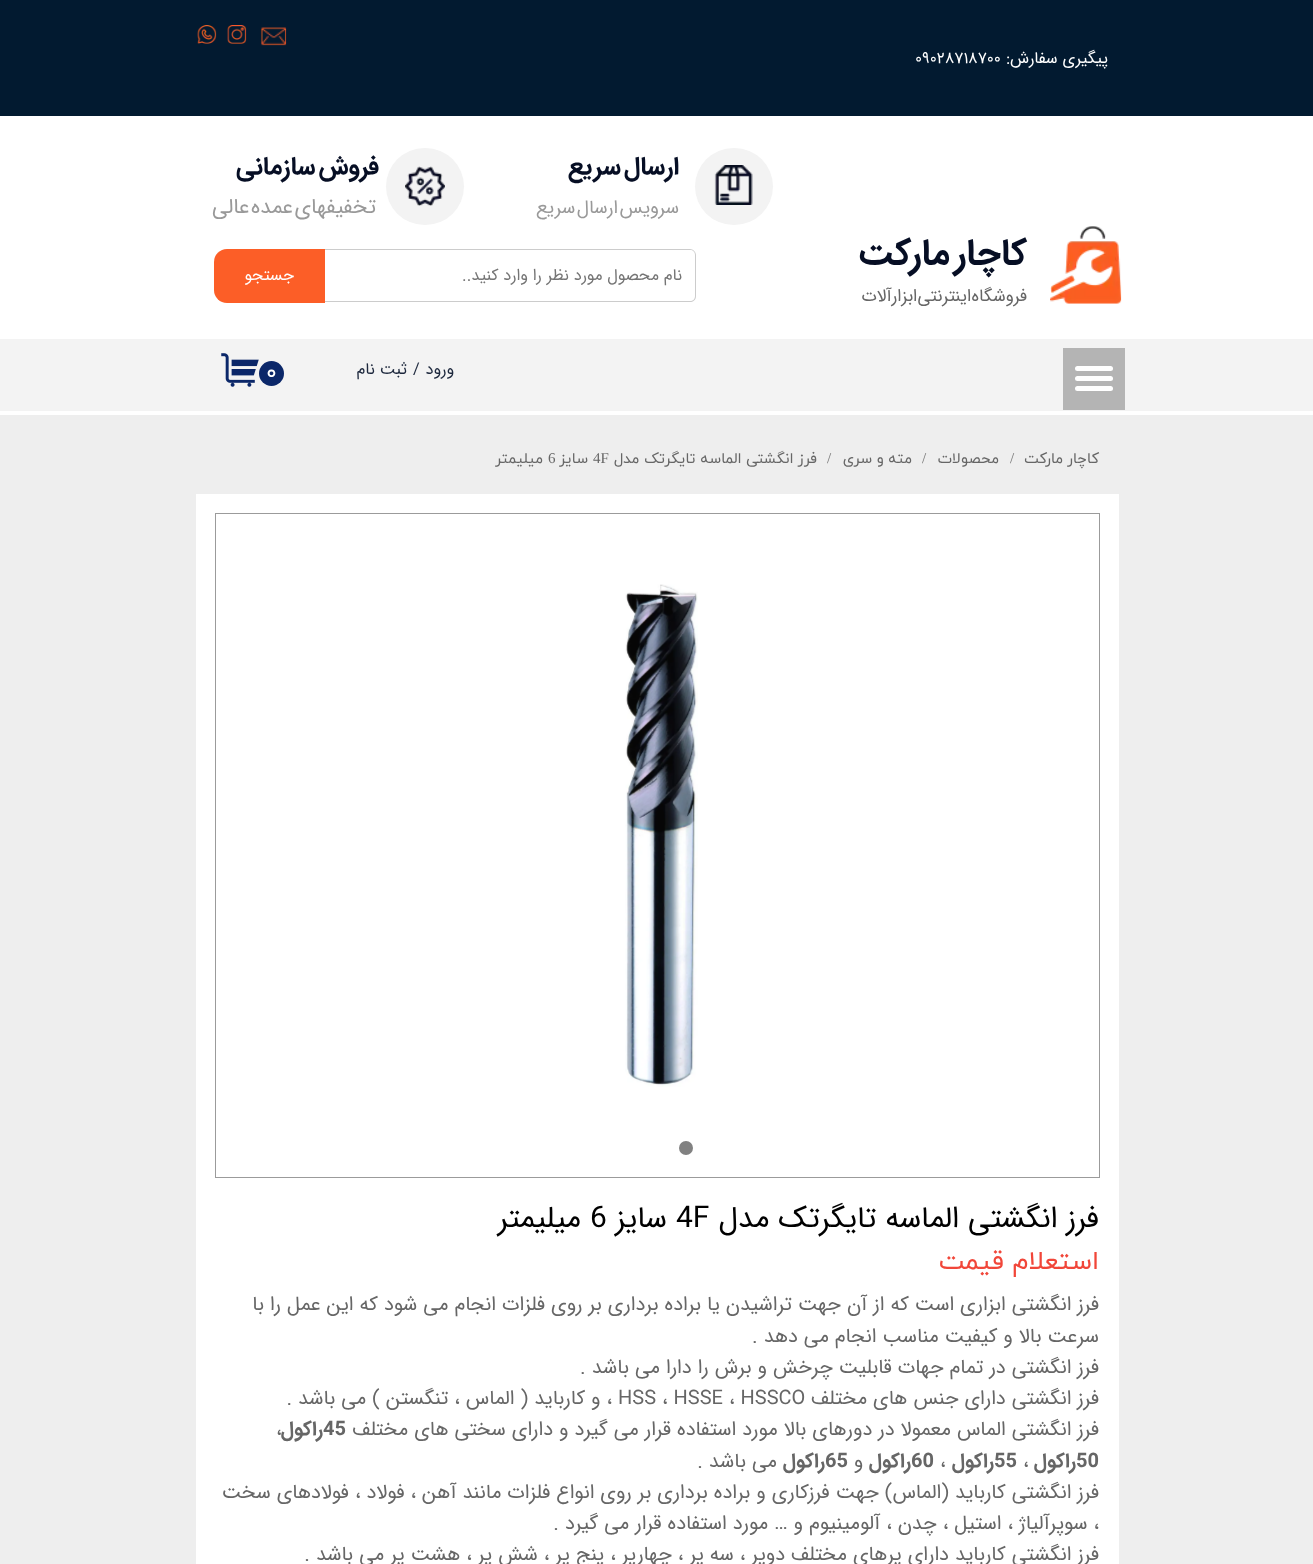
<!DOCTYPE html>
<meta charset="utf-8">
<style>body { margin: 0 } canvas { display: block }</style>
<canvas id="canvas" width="1313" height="1564"></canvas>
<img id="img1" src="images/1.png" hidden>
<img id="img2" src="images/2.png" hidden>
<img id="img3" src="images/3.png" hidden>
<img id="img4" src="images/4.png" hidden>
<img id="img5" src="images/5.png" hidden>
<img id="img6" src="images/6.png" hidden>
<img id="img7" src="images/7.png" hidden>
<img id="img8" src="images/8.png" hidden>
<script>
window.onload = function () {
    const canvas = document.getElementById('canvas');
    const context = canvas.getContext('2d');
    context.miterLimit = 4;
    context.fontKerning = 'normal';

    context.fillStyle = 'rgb(255, 255, 255)';
    context.fillRect(0, 0, 1313, 1564);
    context.fillStyle = 'rgb(2, 26, 48)';
    context.fillRect(0, 0, 1313, 116);
    context.drawImage(document.getElementById('img1'), 261, 27, 26, 19);
    context.drawImage(document.getElementById('img2'), 227, 25, 20, 19);
    context.drawImage(document.getElementById('img3'), 197, 25, 20, 19);
    context.fillStyle = 'rgb(243, 243, 243)';
    context.beginPath();
    context.roundRect(695, 148, 78, 77, 38.5);
    context.fill();
    context.drawImage(document.getElementById('img4'), 714, 165, 39, 40);
    context.beginPath();
    context.roundRect(386, 148, 78, 77, 38.5);
    context.fill();
    context.drawImage(document.getElementById('img5'), 405, 166, 40, 40);
    context.drawImage(document.getElementById('img6'), 1050, 226, 72, 78);
    context.fillStyle = 'rgb(204, 204, 204)';
    context.beginPath();
    context.moveTo(325, 249);
    context.lineTo(690, 249);
    context.bezierCurveTo(693, 249, 696, 252, 696, 255);
    context.lineTo(696, 296);
    context.bezierCurveTo(696, 300, 693, 302, 690, 302);
    context.lineTo(325, 302);
    context.closePath();
    context.moveTo(325, 250);
    context.lineTo(690, 250);
    context.bezierCurveTo(693, 250, 695, 252, 695, 255);
    context.lineTo(695, 296);
    context.bezierCurveTo(695, 299, 693, 301, 690, 301);
    context.lineTo(325, 301);
    context.closePath();
    context.fill('evenodd');
    context.fillStyle = 'rgb(252, 94, 39)';
    context.beginPath();
    context.roundRect(214, 249, 111, 54, [13, 0, 0, 13]);
    context.fill();
    context.fillStyle = 'rgb(243, 243, 243)';
    context.fillRect(0, 339, 1313, 72);
    context.fillStyle = 'rgb(180, 180, 180)';
    context.fillRect(1063, 348, 62, 62);
    context.fillStyle = 'rgb(255, 255, 255)';
    context.beginPath();
    context.roundRect(1075, 366, 38, 5, 2.5);
    context.fill();
    context.beginPath();
    context.roundRect(1075, 376, 38, 5, 2.5);
    context.fill();
    context.beginPath();
    context.roundRect(1075, 386, 38, 5, 2.5);
    context.fill();
    context.fillStyle = 'rgb(11, 39, 105)';
    context.beginPath();
    context.arc(271.5, 373.5, 12.5, 0, 2 * Math.PI);
    context.fill();
    context.drawImage(document.getElementById('img7'), 221, 353, 38, 34);
    context.fillStyle = 'rgb(238, 238, 238)';
    context.fillRect(0, 415, 1313, 1149);
    context.fillStyle = 'rgb(255, 255, 255)';
    context.fillRect(196, 494, 923, 1070);
    context.strokeStyle = 'rgb(155, 155, 155)';
    context.strokeRect(215.5, 513.5, 884, 664);
    context.drawImage(document.getElementById('img8'), 625, 584, 73, 503);
    context.fillStyle = 'rgb(129, 129, 129)';
    context.beginPath();
    context.arc(686, 1148, 7, 0, 2 * Math.PI);
    context.fill();
    context.direction = 'rtl';
    context.font = '16.25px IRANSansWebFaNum';
    context.fillStyle = 'rgb(255, 255, 255)';
    context.fillText('پیگیری سفارش:', 1108, 63);
    context.direction = 'ltr';
    context.fillText('09028718700', 915, 63);
    context.wordSpacing = '-4px';
    context.direction = 'rtl';
    context.font = 'bold 25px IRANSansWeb';
    context.fillStyle = 'rgb(6, 14, 36)';
    context.fillText('ارسال سریع', 679, 174);
    context.font = '18.75px IRANSansWeb';
    context.fillStyle = 'rgb(153, 153, 153)';
    context.fillText('سرویس ارسال سریع', 679, 213);
    context.font = 'bold 25px IRANSansWeb';
    context.fillStyle = 'rgb(6, 14, 36)';
    context.fillText('فروش سازمانی', 379, 174);
    context.wordSpacing = '-5px';
    context.font = '21.25px IRANSansWeb';
    context.fillStyle = 'rgb(153, 153, 153)';
    context.fillText('تخفیفهای عمده عالی', 376, 213);
    context.wordSpacing = '-6px';
    context.font = 'bold 36.25px IRANSansWeb';
    context.fillStyle = 'rgb(6, 14, 36)';
    context.fillText('کاچار مارکت', 1027, 264);
    context.wordSpacing = '-5px';
    context.font = '17.5px IRANSansWeb';
    context.fillStyle = 'rgb(102, 102, 102)';
    context.fillText('فروشگاه  اینترنتی ابزارآلات', 1027, 301);
    context.wordSpacing = '0px';
    context.font = '16.25px IRANSansWeb';
    context.fillStyle = 'rgb(117, 117, 117)';
    context.fillText('نام محصول مورد نظر را وارد کنید..', 682, 280);
    context.fillStyle = 'rgb(255, 255, 255)';
    context.fillText('جستجو', 294, 280);
    context.fillStyle = 'rgb(29, 40, 61)';
    context.fillText('ورود', 454, 374);
    context.direction = 'ltr';
    context.fillText('/', 413, 374);
    context.direction = 'rtl';
    context.fillText('ثبت نام', 407, 374);
    context.direction = 'ltr';
    context.font = '22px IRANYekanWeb';
    context.fillStyle = 'rgb(255, 255, 255)';
    context.fillText('۰', 266, 379);
    context.direction = 'rtl';
    context.font = '15px IRANYekanWeb';
    context.fillStyle = 'rgb(102, 102, 102)';
    context.fillText('کاچار مارکت', 1099, 463);
    context.direction = 'ltr';
    context.font = '15px Liberation Serif';
    context.fillStyle = 'rgb(117, 117, 117)';
    context.fillText('/', 1010, 463);
    context.direction = 'rtl';
    context.font = '15px IRANYekanWeb';
    context.fillStyle = 'rgb(102, 102, 102)';
    context.fillText('محصولات', 999, 463);
    context.direction = 'ltr';
    context.font = '15px Liberation Serif';
    context.fillStyle = 'rgb(117, 117, 117)';
    context.fillText('/', 922, 463);
    context.direction = 'rtl';
    context.font = '15px IRANYekanWeb';
    context.fillStyle = 'rgb(102, 102, 102)';
    context.fillText('مته و سری', 912, 463);
    context.direction = 'ltr';
    context.font = '15px Liberation Serif';
    context.fillStyle = 'rgb(117, 117, 117)';
    context.fillText('/', 827, 463);
    context.direction = 'rtl';
    context.font = '15px IRANYekanWeb';
    context.fillStyle = 'rgb(102, 102, 102)';
    context.fillText('فرز انگشتی الماسه تایگرتک مدل', 817, 463);
    context.direction = 'ltr';
    context.font = '15px Liberation Serif';
    context.fillText('4F', 593, 463);
    context.direction = 'rtl';
    context.font = '15px IRANYekanWeb';
    context.fillText('سایز', 588, 463);
    context.direction = 'ltr';
    context.font = '15px Liberation Serif';
    context.fillText('6', 548, 463);
    context.direction = 'rtl';
    context.font = '15px IRANYekanWeb';
    context.fillText('میلیمتر', 543, 463);
    context.font = '30px IRANSansWeb';
    context.fillStyle = 'rgb(0, 0, 0)';
    context.fillText('فرز انگشتی الماسه تایگرتک مدل', 1099, 1227);
    context.direction = 'ltr';
    context.fillText('4F', 676, 1227);
    context.direction = 'rtl';
    context.fillText('سایز', 667, 1227);
    context.direction = 'ltr';
    context.fillText('6', 590, 1227);
    context.direction = 'rtl';
    context.fillText('میلیمتر', 581, 1227);
    context.font = '26.25px IRANYekanWeb';
    context.fillStyle = 'rgb(241, 70, 57)';
    context.fillText('استعلام قیمت', 1099, 1269);
    context.font = '20px IRANSansWeb';
    context.fillStyle = 'rgb(102, 102, 102)';
    context.fillText('فرز انگشتی ابزاری است که از آن جهت تراشیدن یا براده برداری بر روی فلزات انجام می شود که این عمل را با', 1099, 1310);
    context.fillText('سرعت بالا و کیفیت مناسب انجام می دهد .', 1099, 1342);
    context.fillText('فرز انگشتی در تمام جهات قابلیت چرخش و برش را دارا می باشد .', 1099, 1373);
    context.fillText('فرز انگشتی دارای جنس های مختلف', 1099, 1404);
    context.direction = 'ltr';
    context.fillText('HSS ، HSSE ، HSSCO', 618, 1404);
    context.direction = 'rtl';
    context.fillText('، و کارباید ( الماس ، تنگستن ) می باشد .', 612, 1404);
    context.fillText('فرز انگشتی الماس معمولا در دورهای بالا مورد استفاده قرار می گیرد و دارای سختی های مختلف', 1099, 1435);
    context.direction = 'ltr';
    context.font = 'bold 20px IRANSansWeb';
    context.fillText('45', 323, 1435);
    context.direction = 'rtl';
    context.fillText('راکول', 323, 1435);
    context.direction = 'ltr';
    context.font = '20px IRANSansWeb';
    context.fillText('،', 276, 1435);
    context.font = 'bold 20px IRANSansWeb';
    context.fillText('50', 1076, 1467);
    context.direction = 'rtl';
    context.fillText('راکول', 1076, 1467);
    context.direction = 'ltr';
    context.font = '20px IRANSansWeb';
    context.fillText('،', 1023, 1467);
    context.font = 'bold 20px IRANSansWeb';
    context.fillText('55', 994, 1467);
    context.direction = 'rtl';
    context.fillText('راکول', 994, 1467);
    context.direction = 'ltr';
    context.font = '20px IRANSansWeb';
    context.fillText('،', 940, 1467);
    context.font = 'bold 20px IRANSansWeb';
    context.fillText('60', 911, 1467);
    context.direction = 'rtl';
    context.fillText('راکول', 911, 1467);
    context.font = '20px IRANSansWeb';
    context.fillText('و', 863, 1467);
    context.direction = 'ltr';
    context.font = 'bold 20px IRANSansWeb';
    context.fillText('65', 825, 1467);
    context.direction = 'rtl';
    context.fillText('راکول', 825, 1467);
    context.font = '20px IRANSansWeb';
    context.fillText('می باشد .', 777, 1467);
    context.fillText('فرز انگشتی کارباید (الماس) جهت فرزکاری و براده برداری بر روی انواع فلزات مانند آهن ، فولاد ، فولادهای سخت', 1099, 1498);
    context.fillText('، سوپرآلیاژ ، استیل ، چدن ، آلومینیوم و … مورد استفاده قرار می گیرد .', 1099, 1529);
    context.fillText('فرز انگشتی کارباید دارای پرهای مختلف دوپر ، سه پر ، چهارپر ، پنج پر ، شش پر ، هشت پر می باشد .', 1099, 1560);
};
</script>
